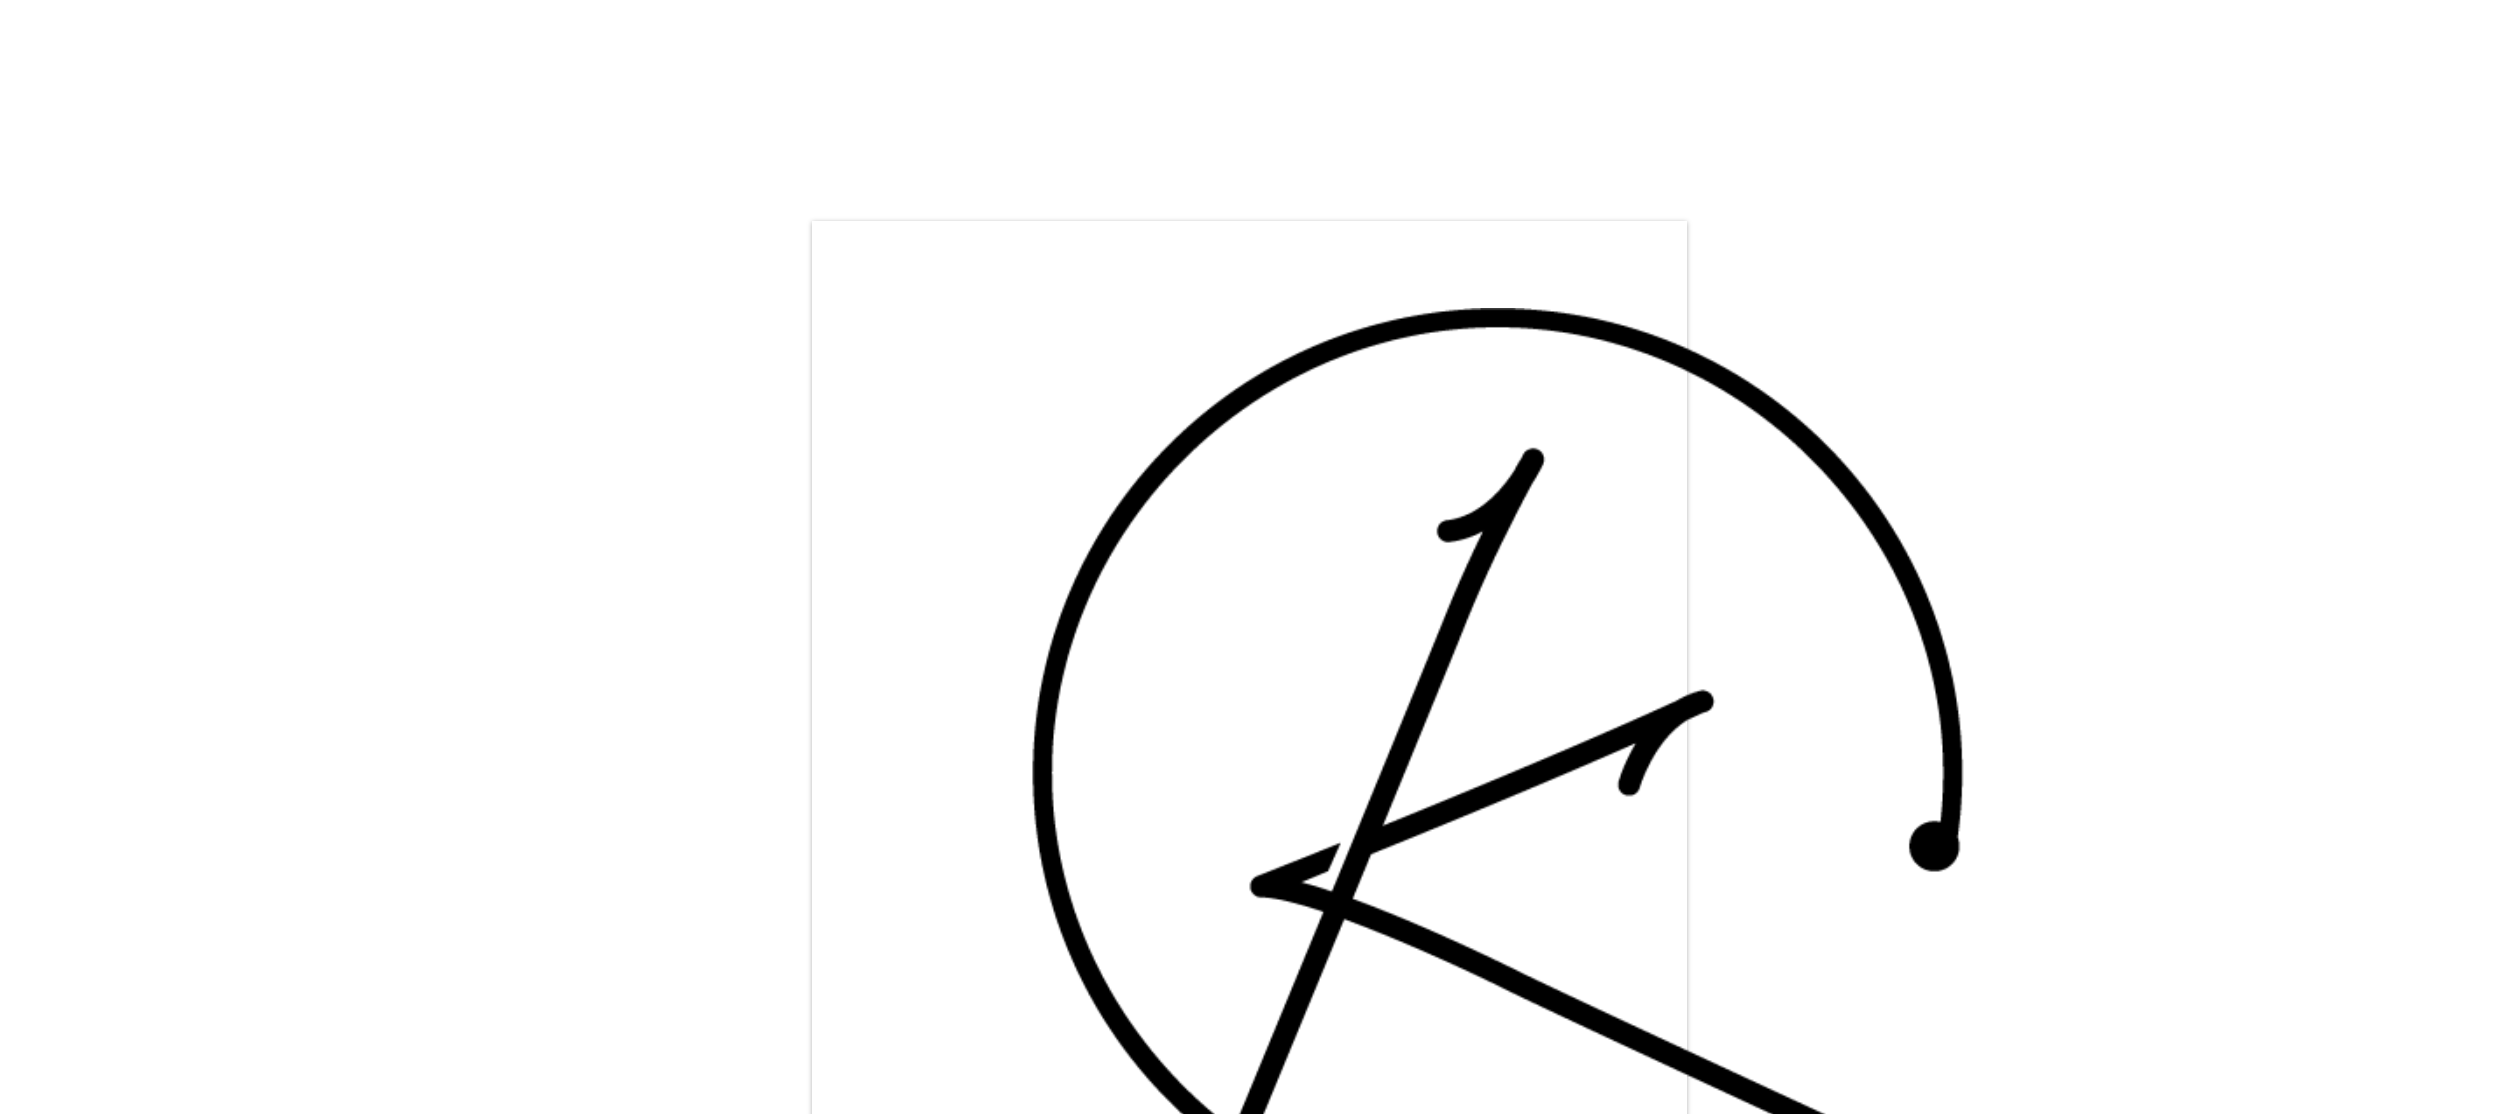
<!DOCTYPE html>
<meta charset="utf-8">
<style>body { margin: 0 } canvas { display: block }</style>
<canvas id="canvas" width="2498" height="1114"></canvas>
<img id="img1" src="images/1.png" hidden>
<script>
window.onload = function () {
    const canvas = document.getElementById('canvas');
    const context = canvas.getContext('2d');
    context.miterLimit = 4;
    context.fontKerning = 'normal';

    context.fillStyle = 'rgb(255, 255, 255)';
    context.fillRect(0, 0, 2498, 1114);
    context.save();
    context.beginPath();
    context.moveTo(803, 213);
    context.lineTo(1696, 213);
    context.lineTo(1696, 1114);
    context.lineTo(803, 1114);
    context.closePath();
    context.moveTo(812, 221);
    context.lineTo(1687, 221);
    context.lineTo(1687, 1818);
    context.lineTo(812, 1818);
    context.closePath();
    context.clip('evenodd');
    context.fillStyle = 'rgba(0, 0, 0, 0.3)';
    context.filter = 'blur(2.5px)';
    context.beginPath();
    context.rect(812, 222, 875, 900);
    context.fill();
    context.filter = 'none';
    context.restore();
    context.drawImage(document.getElementById('img1'), 1032, 308, 932, 806);
};
</script>
